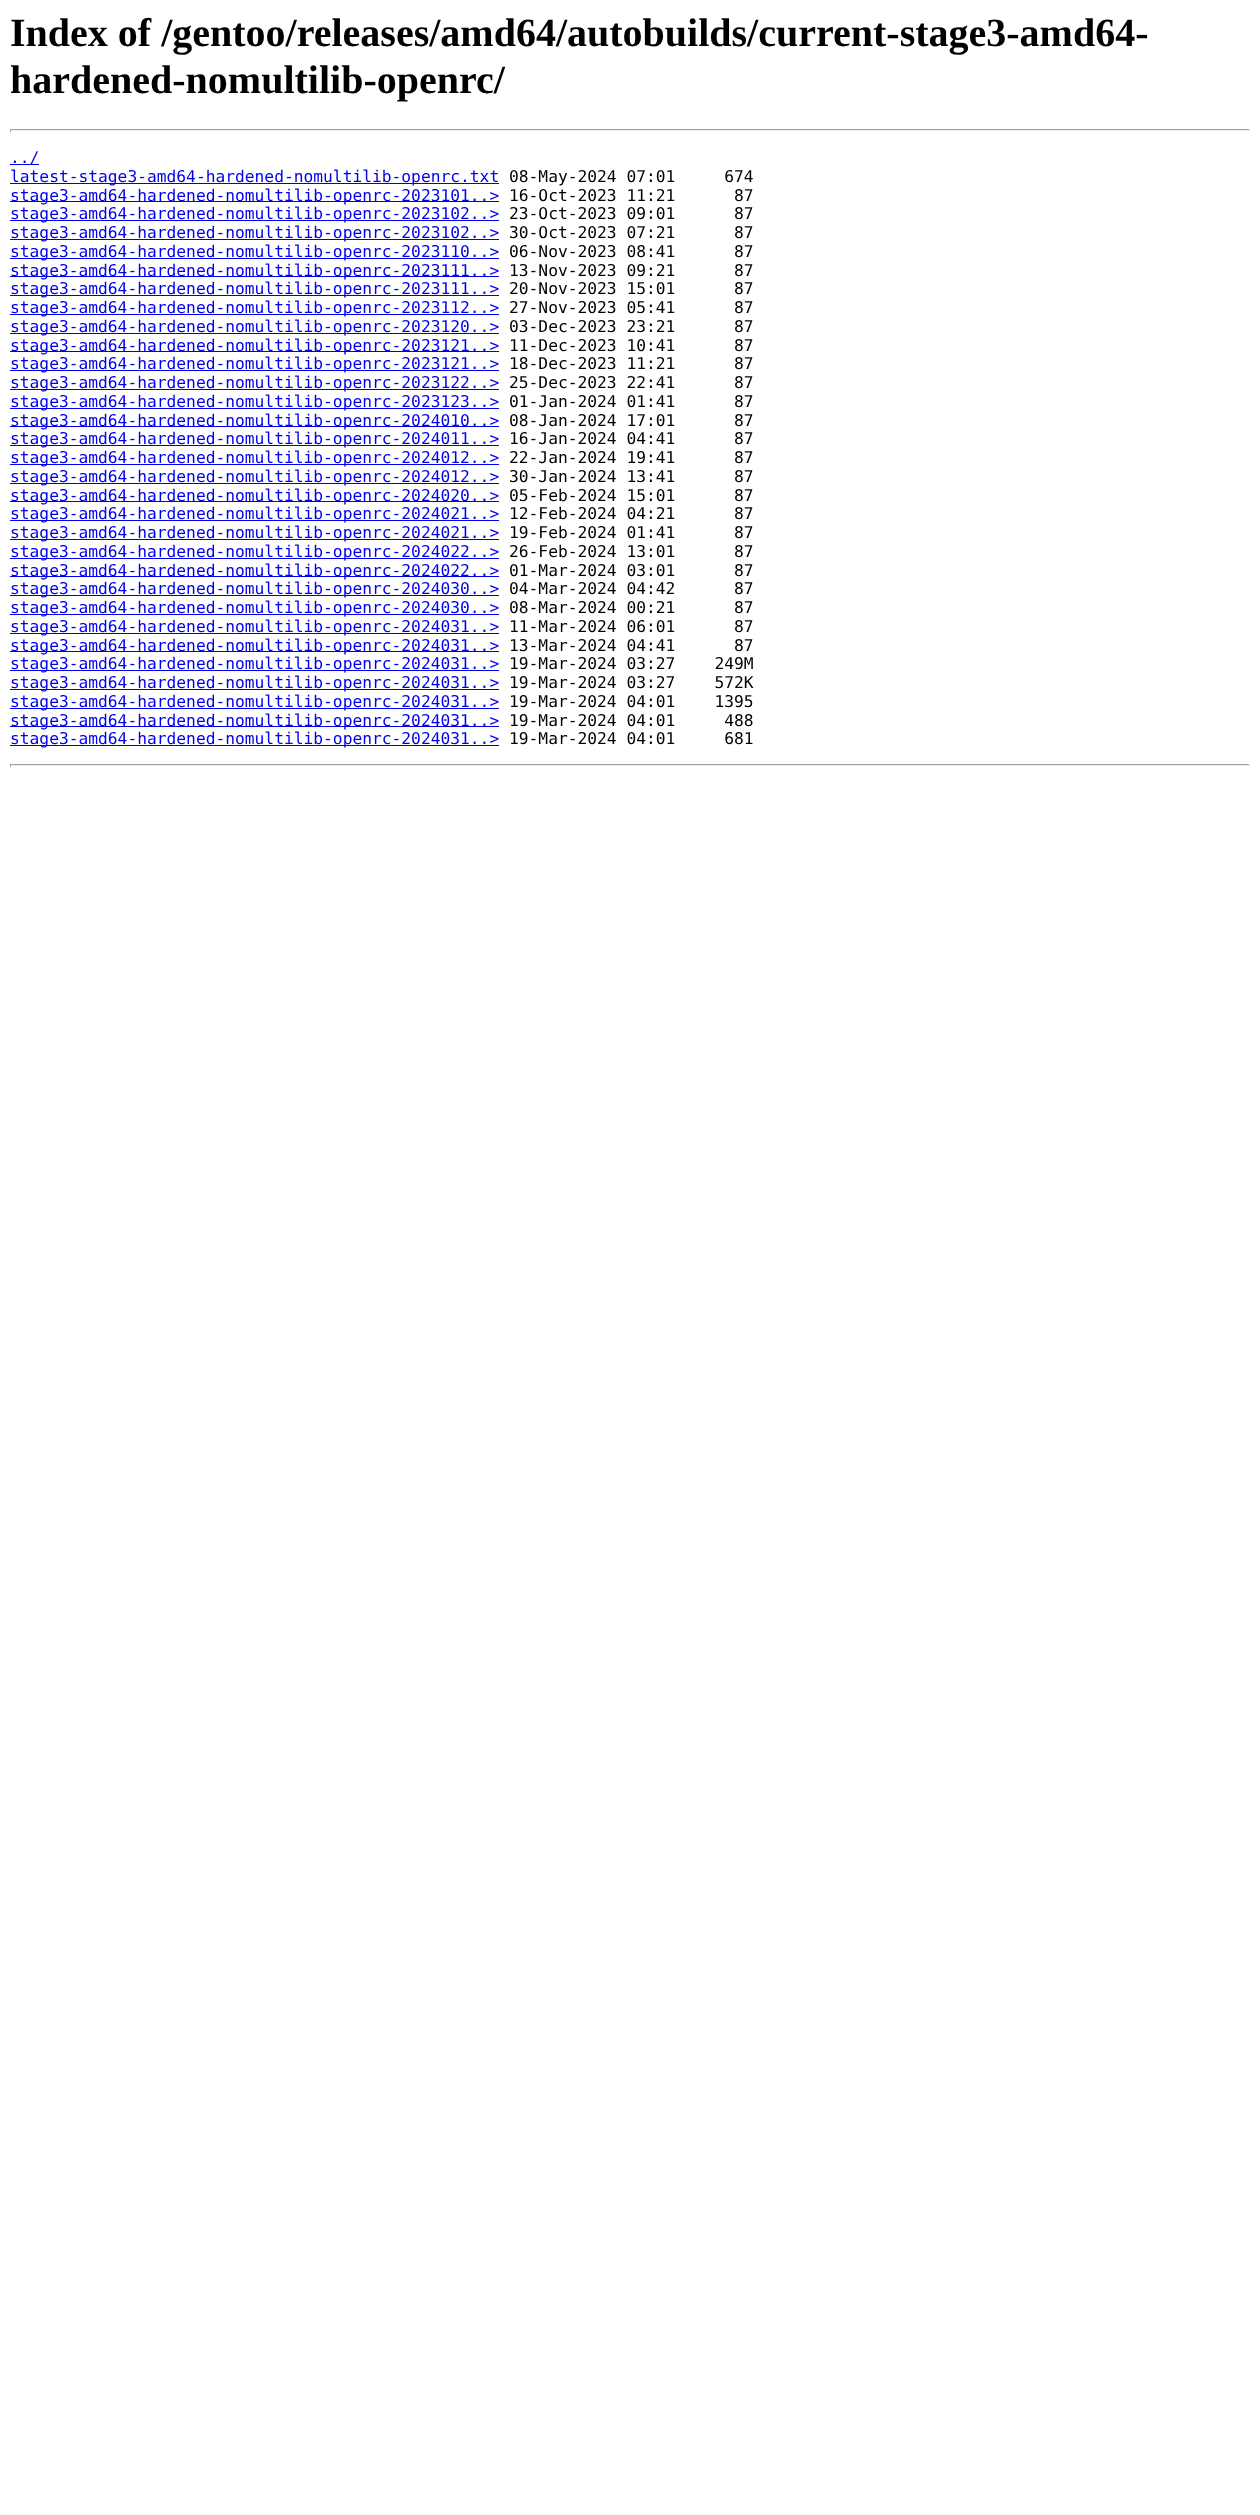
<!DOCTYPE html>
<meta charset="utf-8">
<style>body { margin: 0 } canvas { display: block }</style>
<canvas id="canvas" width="1260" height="2515"></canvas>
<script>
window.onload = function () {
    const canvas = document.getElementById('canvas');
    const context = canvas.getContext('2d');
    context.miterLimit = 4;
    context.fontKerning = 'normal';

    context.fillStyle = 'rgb(255, 255, 255)';
    context.fillRect(0, 0, 1260, 2515);
    context.fillStyle = 'rgb(159, 159, 159)';
    context.fillRect(10, 129, 1240, 1);
    context.fillStyle = 'rgb(238, 238, 238)';
    context.fillRect(1249, 129, 1, 3);
    context.fillRect(10, 130, 1240, 1);
    context.fillStyle = 'rgb(159, 159, 159)';
    context.fillRect(10, 129, 1, 3);
    context.fillStyle = 'rgb(0, 0, 238)';
    context.fillRect(10, 164, 29, 1);
    context.fillRect(10, 183, 489, 1);
    context.fillRect(10, 201, 489, 1);
    context.fillRect(10, 220, 489, 1);
    context.fillRect(10, 239, 489, 1);
    context.fillRect(10, 258, 489, 1);
    context.fillRect(10, 276, 489, 1);
    context.fillRect(10, 295, 489, 1);
    context.fillRect(10, 314, 489, 1);
    context.fillRect(10, 333, 489, 1);
    context.fillRect(10, 351, 489, 1);
    context.fillRect(10, 370, 489, 1);
    context.fillRect(10, 389, 489, 1);
    context.fillRect(10, 408, 489, 1);
    context.fillRect(10, 426, 489, 1);
    context.fillRect(10, 445, 489, 1);
    context.fillRect(10, 464, 489, 1);
    context.fillRect(10, 483, 489, 1);
    context.fillRect(10, 501, 489, 1);
    context.fillRect(10, 520, 489, 1);
    context.fillRect(10, 539, 489, 1);
    context.fillRect(10, 558, 489, 1);
    context.fillRect(10, 576, 489, 1);
    context.fillRect(10, 595, 489, 1);
    context.fillRect(10, 614, 489, 1);
    context.fillRect(10, 633, 489, 1);
    context.fillRect(10, 651, 489, 1);
    context.fillRect(10, 670, 489, 1);
    context.fillRect(10, 689, 489, 1);
    context.fillRect(10, 708, 489, 1);
    context.fillRect(10, 726, 489, 1);
    context.fillRect(10, 745, 489, 1);
    context.fillStyle = 'rgb(159, 159, 159)';
    context.fillRect(10, 764, 1240, 1);
    context.fillStyle = 'rgb(238, 238, 238)';
    context.fillRect(1249, 764, 1, 3);
    context.fillRect(10, 765, 1240, 1);
    context.fillStyle = 'rgb(159, 159, 159)';
    context.fillRect(10, 764, 1, 3);
    context.font = 'bold 40px Liberation Serif';
    context.fillStyle = 'rgb(0, 0, 0)';
    context.fillText('Index of /gentoo/releases/amd64/autobuilds/current-stage3-amd64-', 10, 46);
    context.fillText('hardened-nomultilib-openrc/', 10, 93);
    context.font = '16.25px DejaVu Sans Mono';
    context.fillStyle = 'rgb(0, 0, 238)';
    context.fillText('../', 10, 163);
    context.fillText('latest-stage3-amd64-hardened-nomultilib-openrc.txt', 10, 182);
    context.fillStyle = 'rgb(0, 0, 0)';
    context.fillText('08-May-2024 07:01     674', 509, 182);
    context.fillStyle = 'rgb(0, 0, 238)';
    context.fillText('stage3-amd64-hardened-nomultilib-openrc-2023101..>', 10, 201);
    context.fillStyle = 'rgb(0, 0, 0)';
    context.fillText('16-Oct-2023 11:21      87', 509, 201);
    context.fillStyle = 'rgb(0, 0, 238)';
    context.fillText('stage3-amd64-hardened-nomultilib-openrc-2023102..>', 10, 219);
    context.fillStyle = 'rgb(0, 0, 0)';
    context.fillText('23-Oct-2023 09:01      87', 509, 219);
    context.fillStyle = 'rgb(0, 0, 238)';
    context.fillText('stage3-amd64-hardened-nomultilib-openrc-2023102..>', 10, 238);
    context.fillStyle = 'rgb(0, 0, 0)';
    context.fillText('30-Oct-2023 07:21      87', 509, 238);
    context.fillStyle = 'rgb(0, 0, 238)';
    context.fillText('stage3-amd64-hardened-nomultilib-openrc-2023110..>', 10, 257);
    context.fillStyle = 'rgb(0, 0, 0)';
    context.fillText('06-Nov-2023 08:41      87', 509, 257);
    context.fillStyle = 'rgb(0, 0, 238)';
    context.fillText('stage3-amd64-hardened-nomultilib-openrc-2023111..>', 10, 276);
    context.fillStyle = 'rgb(0, 0, 0)';
    context.fillText('13-Nov-2023 09:21      87', 509, 276);
    context.fillStyle = 'rgb(0, 0, 238)';
    context.fillText('stage3-amd64-hardened-nomultilib-openrc-2023111..>', 10, 294);
    context.fillStyle = 'rgb(0, 0, 0)';
    context.fillText('20-Nov-2023 15:01      87', 509, 294);
    context.fillStyle = 'rgb(0, 0, 238)';
    context.fillText('stage3-amd64-hardened-nomultilib-openrc-2023112..>', 10, 313);
    context.fillStyle = 'rgb(0, 0, 0)';
    context.fillText('27-Nov-2023 05:41      87', 509, 313);
    context.fillStyle = 'rgb(0, 0, 238)';
    context.fillText('stage3-amd64-hardened-nomultilib-openrc-2023120..>', 10, 332);
    context.fillStyle = 'rgb(0, 0, 0)';
    context.fillText('03-Dec-2023 23:21      87', 509, 332);
    context.fillStyle = 'rgb(0, 0, 238)';
    context.fillText('stage3-amd64-hardened-nomultilib-openrc-2023121..>', 10, 351);
    context.fillStyle = 'rgb(0, 0, 0)';
    context.fillText('11-Dec-2023 10:41      87', 509, 351);
    context.fillStyle = 'rgb(0, 0, 238)';
    context.fillText('stage3-amd64-hardened-nomultilib-openrc-2023121..>', 10, 369);
    context.fillStyle = 'rgb(0, 0, 0)';
    context.fillText('18-Dec-2023 11:21      87', 509, 369);
    context.fillStyle = 'rgb(0, 0, 238)';
    context.fillText('stage3-amd64-hardened-nomultilib-openrc-2023122..>', 10, 388);
    context.fillStyle = 'rgb(0, 0, 0)';
    context.fillText('25-Dec-2023 22:41      87', 509, 388);
    context.fillStyle = 'rgb(0, 0, 238)';
    context.fillText('stage3-amd64-hardened-nomultilib-openrc-2023123..>', 10, 407);
    context.fillStyle = 'rgb(0, 0, 0)';
    context.fillText('01-Jan-2024 01:41      87', 509, 407);
    context.fillStyle = 'rgb(0, 0, 238)';
    context.fillText('stage3-amd64-hardened-nomultilib-openrc-2024010..>', 10, 426);
    context.fillStyle = 'rgb(0, 0, 0)';
    context.fillText('08-Jan-2024 17:01      87', 509, 426);
    context.fillStyle = 'rgb(0, 0, 238)';
    context.fillText('stage3-amd64-hardened-nomultilib-openrc-2024011..>', 10, 444);
    context.fillStyle = 'rgb(0, 0, 0)';
    context.fillText('16-Jan-2024 04:41      87', 509, 444);
    context.fillStyle = 'rgb(0, 0, 238)';
    context.fillText('stage3-amd64-hardened-nomultilib-openrc-2024012..>', 10, 463);
    context.fillStyle = 'rgb(0, 0, 0)';
    context.fillText('22-Jan-2024 19:41      87', 509, 463);
    context.fillStyle = 'rgb(0, 0, 238)';
    context.fillText('stage3-amd64-hardened-nomultilib-openrc-2024012..>', 10, 482);
    context.fillStyle = 'rgb(0, 0, 0)';
    context.fillText('30-Jan-2024 13:41      87', 509, 482);
    context.fillStyle = 'rgb(0, 0, 238)';
    context.fillText('stage3-amd64-hardened-nomultilib-openrc-2024020..>', 10, 501);
    context.fillStyle = 'rgb(0, 0, 0)';
    context.fillText('05-Feb-2024 15:01      87', 509, 501);
    context.fillStyle = 'rgb(0, 0, 238)';
    context.fillText('stage3-amd64-hardened-nomultilib-openrc-2024021..>', 10, 519);
    context.fillStyle = 'rgb(0, 0, 0)';
    context.fillText('12-Feb-2024 04:21      87', 509, 519);
    context.fillStyle = 'rgb(0, 0, 238)';
    context.fillText('stage3-amd64-hardened-nomultilib-openrc-2024021..>', 10, 538);
    context.fillStyle = 'rgb(0, 0, 0)';
    context.fillText('19-Feb-2024 01:41      87', 509, 538);
    context.fillStyle = 'rgb(0, 0, 238)';
    context.fillText('stage3-amd64-hardened-nomultilib-openrc-2024022..>', 10, 557);
    context.fillStyle = 'rgb(0, 0, 0)';
    context.fillText('26-Feb-2024 13:01      87', 509, 557);
    context.fillStyle = 'rgb(0, 0, 238)';
    context.fillText('stage3-amd64-hardened-nomultilib-openrc-2024022..>', 10, 576);
    context.fillStyle = 'rgb(0, 0, 0)';
    context.fillText('01-Mar-2024 03:01      87', 509, 576);
    context.fillStyle = 'rgb(0, 0, 238)';
    context.fillText('stage3-amd64-hardened-nomultilib-openrc-2024030..>', 10, 594);
    context.fillStyle = 'rgb(0, 0, 0)';
    context.fillText('04-Mar-2024 04:42      87', 509, 594);
    context.fillStyle = 'rgb(0, 0, 238)';
    context.fillText('stage3-amd64-hardened-nomultilib-openrc-2024030..>', 10, 613);
    context.fillStyle = 'rgb(0, 0, 0)';
    context.fillText('08-Mar-2024 00:21      87', 509, 613);
    context.fillStyle = 'rgb(0, 0, 238)';
    context.fillText('stage3-amd64-hardened-nomultilib-openrc-2024031..>', 10, 632);
    context.fillStyle = 'rgb(0, 0, 0)';
    context.fillText('11-Mar-2024 06:01      87', 509, 632);
    context.fillStyle = 'rgb(0, 0, 238)';
    context.fillText('stage3-amd64-hardened-nomultilib-openrc-2024031..>', 10, 651);
    context.fillStyle = 'rgb(0, 0, 0)';
    context.fillText('13-Mar-2024 04:41      87', 509, 651);
    context.fillStyle = 'rgb(0, 0, 238)';
    context.fillText('stage3-amd64-hardened-nomultilib-openrc-2024031..>', 10, 669);
    context.fillStyle = 'rgb(0, 0, 0)';
    context.fillText('19-Mar-2024 03:27    249M', 509, 669);
    context.fillStyle = 'rgb(0, 0, 238)';
    context.fillText('stage3-amd64-hardened-nomultilib-openrc-2024031..>', 10, 688);
    context.fillStyle = 'rgb(0, 0, 0)';
    context.fillText('19-Mar-2024 03:27    572K', 509, 688);
    context.fillStyle = 'rgb(0, 0, 238)';
    context.fillText('stage3-amd64-hardened-nomultilib-openrc-2024031..>', 10, 707);
    context.fillStyle = 'rgb(0, 0, 0)';
    context.fillText('19-Mar-2024 04:01    1395', 509, 707);
    context.fillStyle = 'rgb(0, 0, 238)';
    context.fillText('stage3-amd64-hardened-nomultilib-openrc-2024031..>', 10, 726);
    context.fillStyle = 'rgb(0, 0, 0)';
    context.fillText('19-Mar-2024 04:01     488', 509, 726);
    context.fillStyle = 'rgb(0, 0, 238)';
    context.fillText('stage3-amd64-hardened-nomultilib-openrc-2024031..>', 10, 744);
    context.fillStyle = 'rgb(0, 0, 0)';
    context.fillText('19-Mar-2024 04:01     681', 509, 744);
};
</script>
